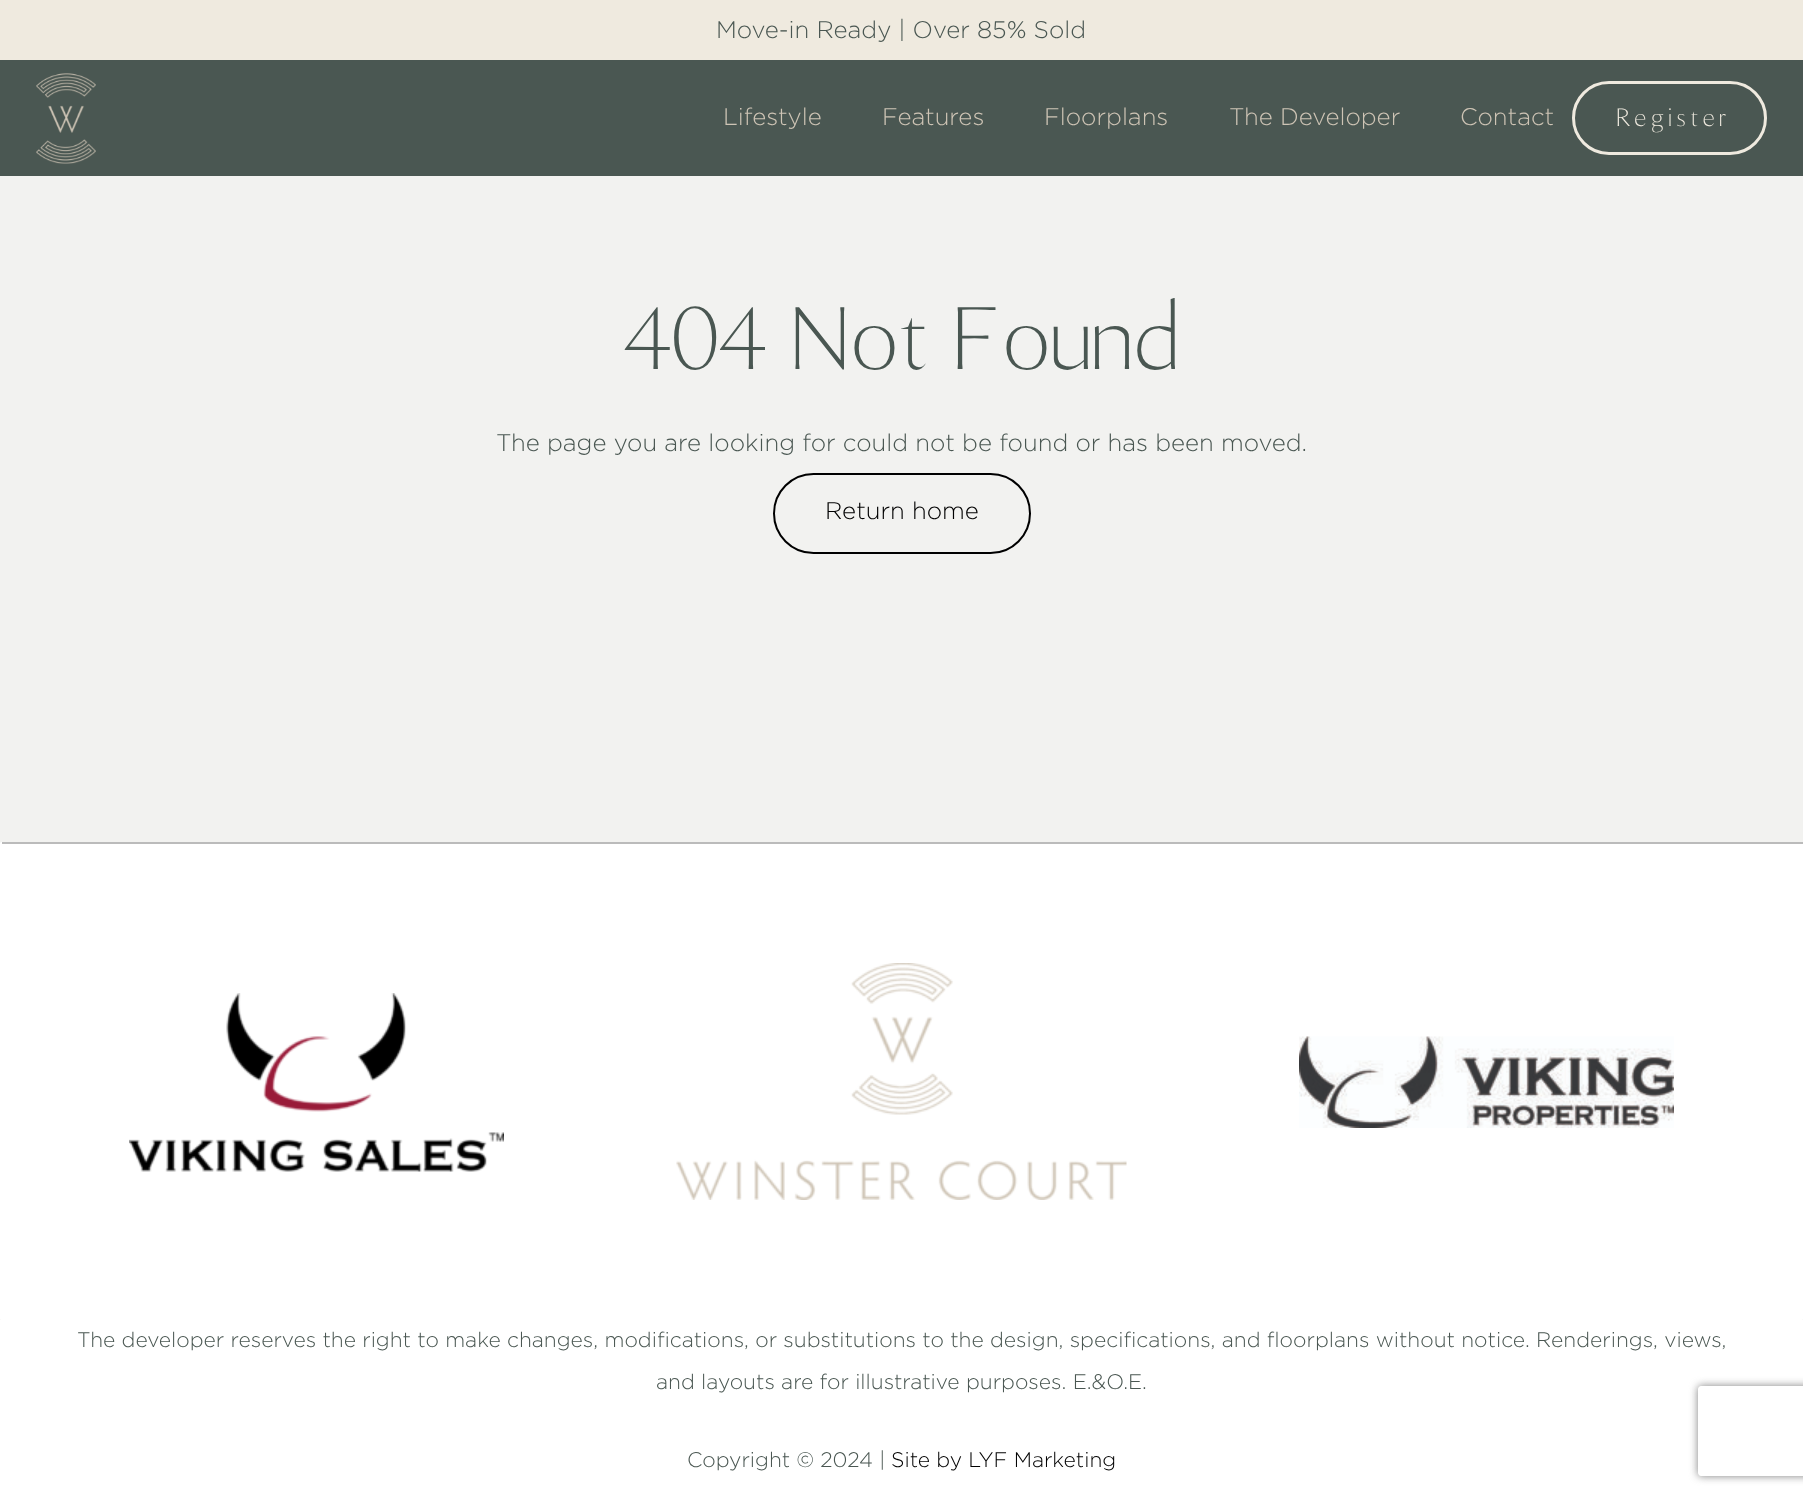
<!DOCTYPE html>
<meta charset="utf-8">
<style>body { margin: 0 } canvas { display: block }</style>
<canvas id="canvas" width="1803" height="1496"></canvas>
<img id="img1" src="images/1.png" hidden>
<img id="img2" src="images/2.png" hidden>
<img id="img3" src="images/3.png" hidden>
<img id="img4" src="images/4.png" hidden>
<script>
window.onload = function () {
    const canvas = document.getElementById('canvas');
    const context = canvas.getContext('2d');
    context.miterLimit = 4;
    context.fontKerning = 'normal';

    context.fillStyle = 'rgb(242, 242, 240)';
    context.fillRect(0, 0, 1803, 1496);
    context.fillStyle = 'rgb(239, 234, 223)';
    context.fillRect(0, 0, 1803, 60);
    context.fillStyle = 'rgb(74, 87, 82)';
    context.fillRect(0, 60, 1803, 116);
    context.drawImage(document.getElementById('img1'), 36, 73, 60, 91);
    context.beginPath();
    context.roundRect(1573.5, 82.5, 192, 71, 35.5);
    context.strokeStyle = 'rgb(239, 234, 223)';
    context.lineWidth = 3;
    context.stroke();
    context.beginPath();
    context.roundRect(774, 474, 256, 79, 39.5);
    context.strokeStyle = 'rgb(0, 0, 0)';
    context.lineWidth = 2;
    context.stroke();
    context.fillStyle = 'rgb(255, 255, 255)';
    context.beginPath();
    context.roundRect(0, 842, 1803, 478, 1.5);
    context.fill();
    context.fillStyle = 'rgb(187, 187, 187)';
    context.fillRect(2, 842, 1801, 2);
    context.drawImage(document.getElementById('img2'), 129, 993, 375, 179);
    context.drawImage(document.getElementById('img3'), 676, 963, 451, 237);
    context.drawImage(document.getElementById('img4'), 1299, 1036, 375, 92);
    context.fillStyle = 'rgb(255, 255, 255)';
    context.fillRect(0, 1320, 1803, 176);
    context.save();
    context.beginPath();
    context.moveTo(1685, 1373);
    context.lineTo(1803, 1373);
    context.lineTo(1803, 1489);
    context.lineTo(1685, 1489);
    context.closePath();
    context.moveTo(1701, 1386);
    context.lineTo(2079, 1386);
    context.bezierCurveTo(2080.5, 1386, 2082, 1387.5, 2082, 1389);
    context.lineTo(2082, 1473);
    context.bezierCurveTo(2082, 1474.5, 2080.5, 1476, 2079, 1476);
    context.lineTo(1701, 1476);
    context.bezierCurveTo(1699.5, 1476, 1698, 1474.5, 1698, 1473);
    context.lineTo(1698, 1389);
    context.bezierCurveTo(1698, 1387.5, 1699.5, 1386, 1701, 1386);
    context.closePath();
    context.clip('evenodd');
    context.fillStyle = 'rgb(128, 128, 128)';
    context.filter = 'blur(4px)';
    context.beginPath();
    context.roundRect(1698, 1386, 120, 90, 3);
    context.fill();
    context.filter = 'none';
    context.restore();
    context.font = '300 24px Gotham';
    context.fillStyle = 'rgb(74, 87, 82)';
    context.fillText('Move-in Ready | Over 85% Sold', 716, 38);
    context.fillStyle = 'rgb(206, 196, 181)';
    context.fillText('Lifestyle', 723, 125);
    context.fillText('Features', 882, 125);
    context.fillText('Floorplans', 1044, 125);
    context.fillText('The Developer', 1229, 125);
    context.fillText('Contact', 1460, 125);
    context.letterSpacing = '3.75px';
    context.font = '27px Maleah';
    context.fillStyle = 'rgb(239, 234, 223)';
    context.fillText('Register', 1616, 126);
    context.letterSpacing = '0px';
    context.font = '96px Maleah';
    context.fillStyle = 'rgb(74, 87, 82)';
    context.fillText('404 Not Found', 624, 369);
    context.font = '300 24px Gotham';
    context.fillText('The page you are looking for could not be found or has been moved.', 496, 451);
    context.fillStyle = 'rgb(0, 0, 0)';
    context.fillText('Return home', 825, 519);
    context.font = '300 21px Gotham';
    context.fillStyle = 'rgb(74, 87, 82)';
    context.fillText('The developer reserves the right to make changes, modifications, or substitutions to the design, specifications, and floorplans without notice. Renderings, views,', 77, 1347);
    context.fillText('and layouts are for illustrative purposes. E.&O.E.', 656, 1389);
    context.fillText('Copyright © 2024 |', 687, 1467);
    context.fillStyle = 'rgb(0, 0, 0)';
    context.fillText('Site by LYF Marketing', 891, 1467);
};
</script>
